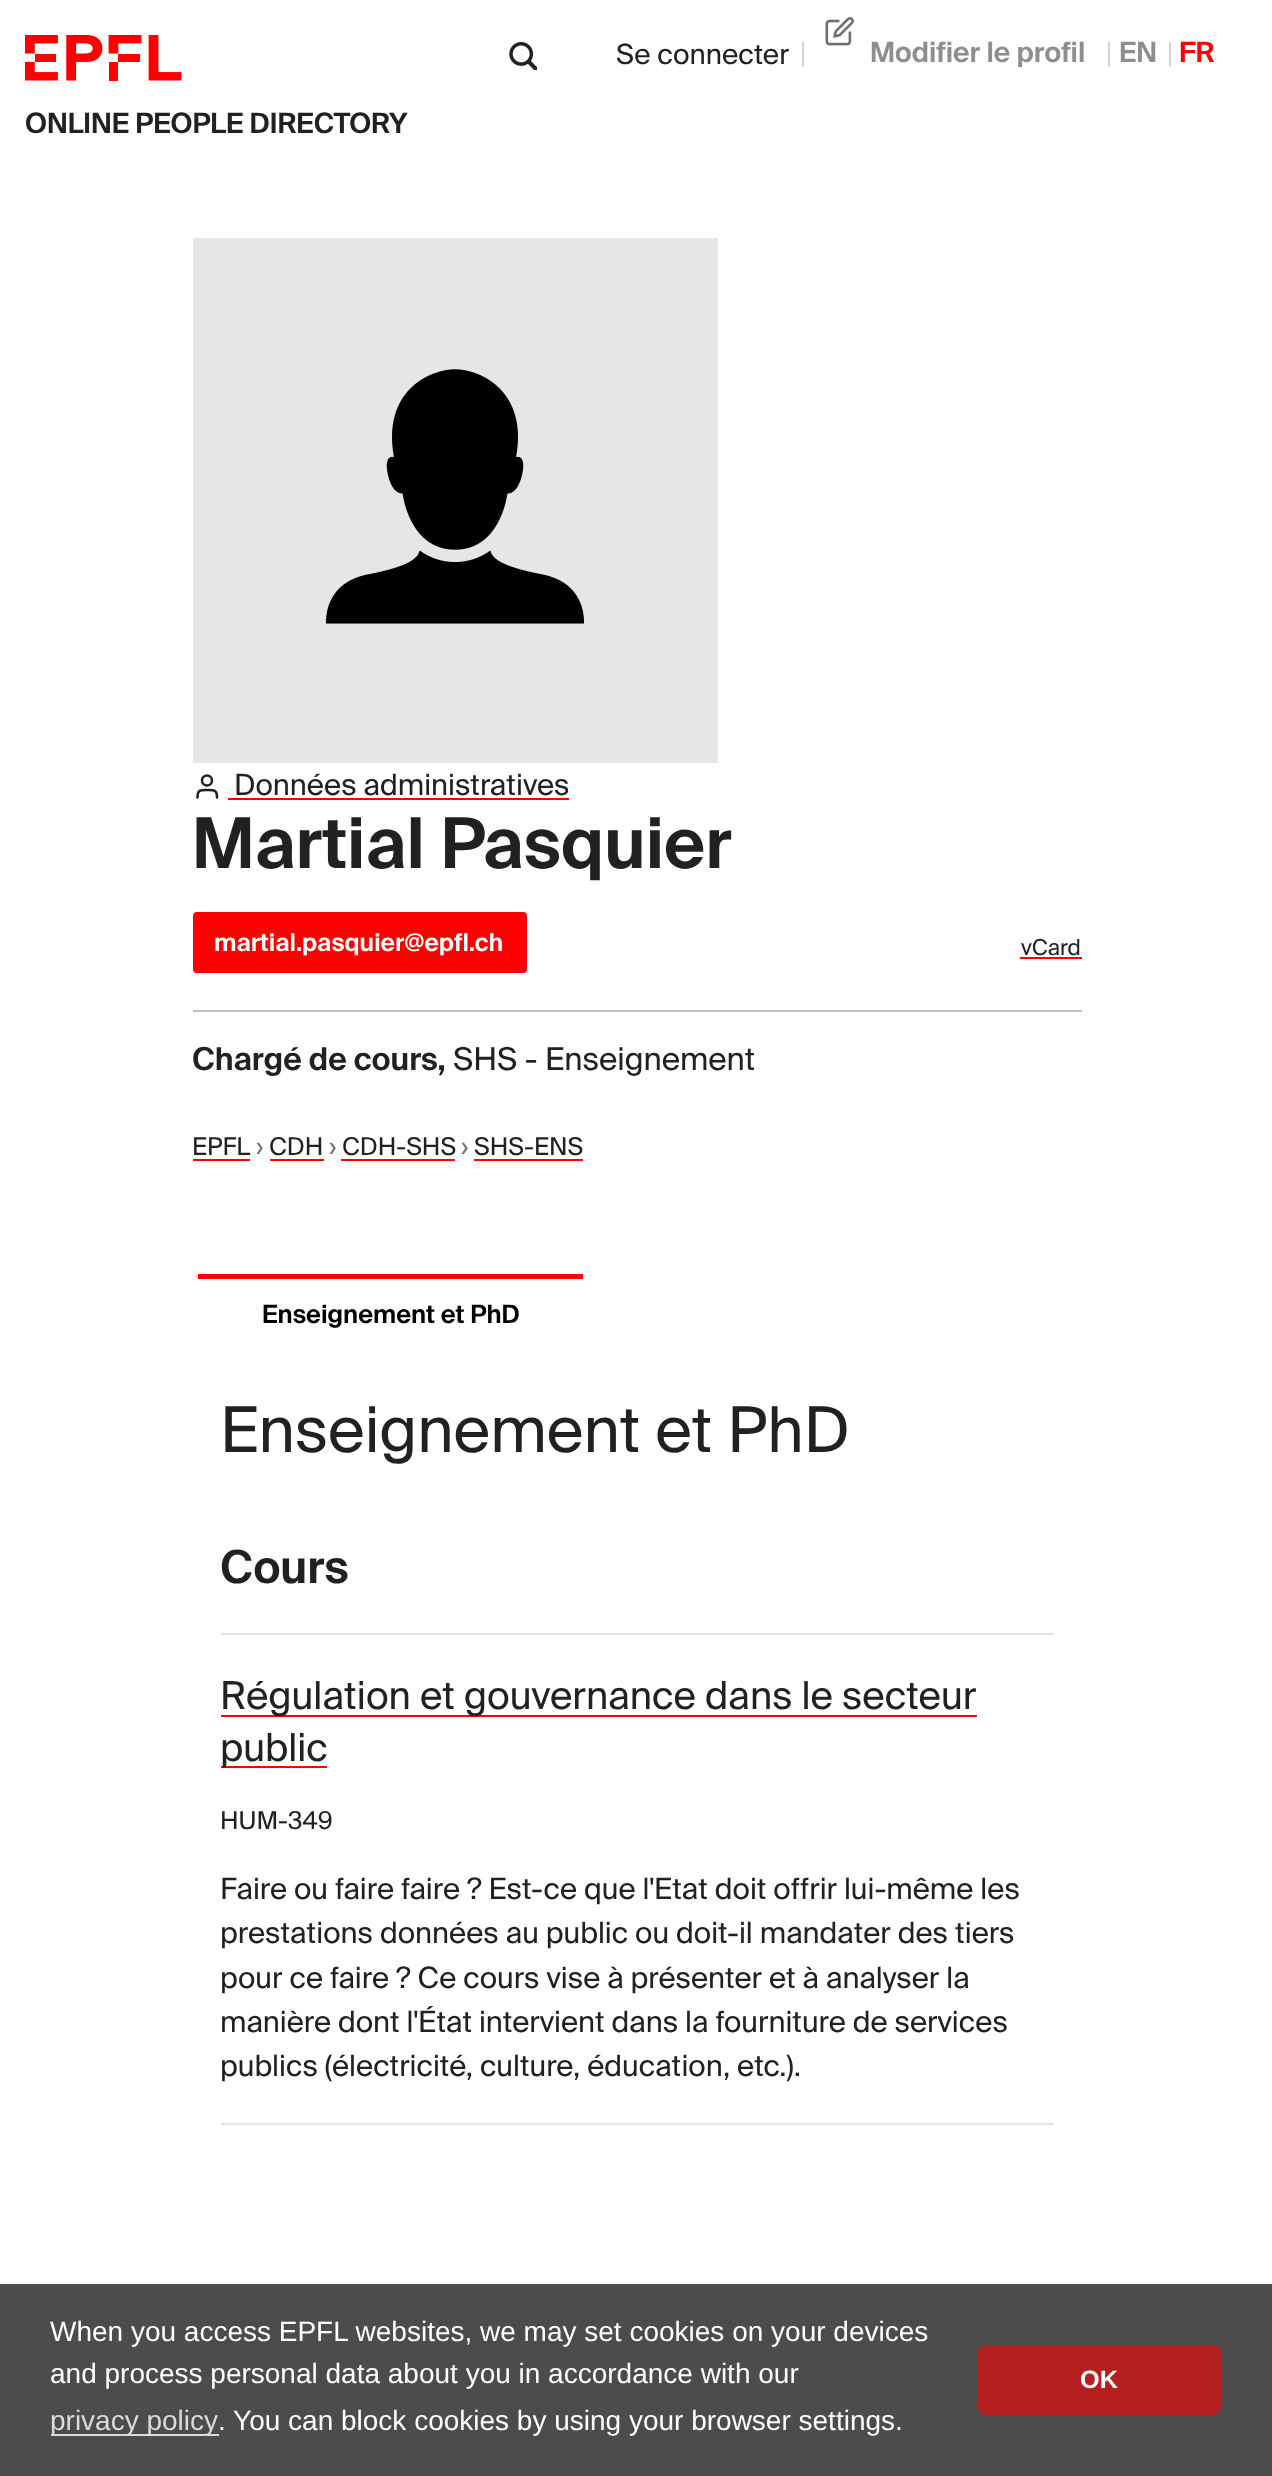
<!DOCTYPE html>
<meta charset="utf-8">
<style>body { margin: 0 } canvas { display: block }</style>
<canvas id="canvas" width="1272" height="2476"></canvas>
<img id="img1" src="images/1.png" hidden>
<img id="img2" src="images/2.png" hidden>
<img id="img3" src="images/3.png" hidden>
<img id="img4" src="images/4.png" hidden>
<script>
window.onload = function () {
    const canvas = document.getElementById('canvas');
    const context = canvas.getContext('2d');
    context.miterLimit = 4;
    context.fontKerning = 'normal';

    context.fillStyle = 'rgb(255, 255, 255)';
    context.fillRect(0, 0, 1272, 2476);
    context.drawImage(document.getElementById('img1'), 25, 35, 157, 46);
    context.drawImage(document.getElementById('img2'), 509, 42, 28, 28);
    context.fillStyle = 'rgb(213, 213, 213)';
    context.fillRect(802, 42, 2, 25);
    context.drawImage(document.getElementById('img3'), 825, 17, 29, 29);
    context.fillRect(1108, 42, 2, 25);
    context.fillRect(1169, 42, 2, 25);
    context.fillStyle = 'rgb(230, 230, 230)';
    context.fillRect(193, 238, 525, 525);
    context.drawImage(document.getElementById('img4'), 325, 369, 260, 255);
    context.beginPath();
    context.moveTo(217, 797.5);
    context.bezierCurveTo(217, 789.5, 214, 790, 207, 790);
    context.bezierCurveTo(200.5, 790, 197.5, 789.5, 197.5, 797.5);
    context.strokeStyle = 'rgb(33, 33, 33)';
    context.lineWidth = 2.5;
    context.lineCap = 'round';
    context.lineJoin = 'round';
    context.stroke();
    context.beginPath();
    context.arc(207, 780.5, 5, 0, 2 * Math.PI);
    context.stroke();
    context.fillStyle = 'rgb(255, 0, 0)';
    context.fillRect(228, 798, 341, 2);
    context.beginPath();
    context.roundRect(194, 913, 332, 59, 3);
    context.fill();
    context.strokeStyle = 'rgb(255, 0, 0)';
    context.lineWidth = 2;
    context.lineJoin = 'miter';
    context.stroke();
    context.fillRect(1020, 957, 62, 2);
    context.fillStyle = 'rgb(193, 193, 193)';
    context.fillRect(193, 1010, 889, 2);
    context.fillStyle = 'rgb(255, 0, 0)';
    context.fillRect(193, 1159, 57, 2);
    context.fillRect(270, 1159, 54, 2);
    context.fillRect(341, 1159, 114, 2);
    context.fillRect(474, 1159, 109, 2);
    context.fillRect(198, 1274, 385, 5);
    context.fillStyle = 'rgb(227, 227, 227)';
    context.fillRect(221, 1633, 833, 2);
    context.fillRect(221, 2123, 833, 2);
    context.fillStyle = 'rgb(255, 0, 0)';
    context.fillRect(221, 1715, 756, 2);
    context.fillRect(221, 1766, 106, 2);
    context.fillStyle = 'rgb(76, 76, 76)';
    context.fillRect(0, 2284, 1272, 192);
    context.fillStyle = 'rgb(219, 219, 219)';
    context.fillRect(51, 2434, 168, 2);
    context.fillStyle = 'rgb(181, 31, 31)';
    context.beginPath();
    context.roundRect(977, 2345, 245, 70, 9);
    context.fill();
    context.font = '28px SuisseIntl';
    context.fillStyle = 'rgb(33, 33, 33)';
    context.fillText('Se connecter', 616, 64);
    context.font = '600 28px SuisseIntl';
    context.fillStyle = 'rgb(142, 142, 142)';
    context.fillText('Modifier le profil', 870, 62);
    context.fillText('EN', 1119, 62);
    context.fillStyle = 'rgb(255, 0, 0)';
    context.fillText('FR', 1179, 62);
    context.fillStyle = 'rgb(33, 33, 33)';
    context.fillText('ONLINE PEOPLE DIRECTORY', 25, 133);
    context.font = '29.4px SuisseIntl';
    context.fillText('Données administratives', 234, 795);
    context.font = '600 70px SuisseIntl';
    context.fillText('Martial Pasquier', 192, 868);
    context.font = '600 24.5px SuisseIntl';
    context.fillStyle = 'rgb(255, 255, 255)';
    context.fillText('martial.pasquier@epfl.ch', 214, 951);
    context.font = '22px SuisseIntl';
    context.fillStyle = 'rgb(33, 33, 33)';
    context.fillText('vCard', 1021, 955);
    context.font = '600 31.5px SuisseIntl';
    context.fillText('Chargé de cours,', 192, 1070);
    context.font = '31.5px SuisseIntl';
    context.fillText('SHS - Enseignement', 453, 1070);
    context.font = '24.5px SuisseIntl';
    context.fillText('EPFL', 192, 1155);
    context.fillStyle = 'rgb(112, 112, 112)';
    context.fillText('›', 256, 1155);
    context.fillStyle = 'rgb(33, 33, 33)';
    context.fillText('CDH', 269, 1155);
    context.fillStyle = 'rgb(112, 112, 112)';
    context.fillText('›', 329, 1155);
    context.fillStyle = 'rgb(33, 33, 33)';
    context.fillText('CDH-SHS', 342, 1155);
    context.fillStyle = 'rgb(112, 112, 112)';
    context.fillText('›', 461, 1155);
    context.fillStyle = 'rgb(33, 33, 33)';
    context.fillText('SHS-ENS', 474, 1155);
    context.font = '600 25.25px SuisseIntl';
    context.fillStyle = 'rgb(0, 0, 0)';
    context.fillText('Enseignement et PhD', 262, 1323);
    context.font = '63px SuisseIntl';
    context.fillStyle = 'rgb(33, 33, 33)';
    context.fillText('Enseignement et PhD', 220, 1452);
    context.font = '600 45.5px SuisseIntl';
    context.fillText('Cours', 220, 1583);
    context.font = '38.5px SuisseIntl';
    context.fillText('Régulation et gouvernance dans le secteur', 220, 1709);
    context.fillText('public', 220, 1761);
    context.font = '24.5px SuisseIntl';
    context.fillText('HUM-349', 220, 1829);
    context.font = '29.4px SuisseIntl';
    context.fillText('Faire ou faire faire ? Est-ce que l\'Etat doit offrir lui-même les', 220, 1899);
    context.fillText('prestations données au public ou doit-il mandater des tiers', 220, 1943);
    context.fillText('pour ce faire ? Ce cours vise à présenter et à analyser la', 220, 1988);
    context.fillText('manière dont l\'État intervient dans la fourniture de services', 220, 2032);
    context.fillText('publics (électricité, culture, éducation, etc.).', 220, 2076);
    context.font = '28px Liberation Sans';
    context.fillStyle = 'rgb(255, 255, 255)';
    context.fillText('When you access EPFL websites, we may set cookies on your devices', 50, 2341);
    context.fillText('and process personal data about you in accordance with our', 50, 2383);
    context.fillStyle = 'rgb(219, 219, 219)';
    context.fillText('privacy policy', 50, 2430);
    context.fillStyle = 'rgb(255, 255, 255)';
    context.fillText('. You can block cookies by using your browser settings.', 218, 2430);
    context.font = 'bold 25.25px Liberation Sans';
    context.fillText('OK', 1080, 2388);
};
</script>
